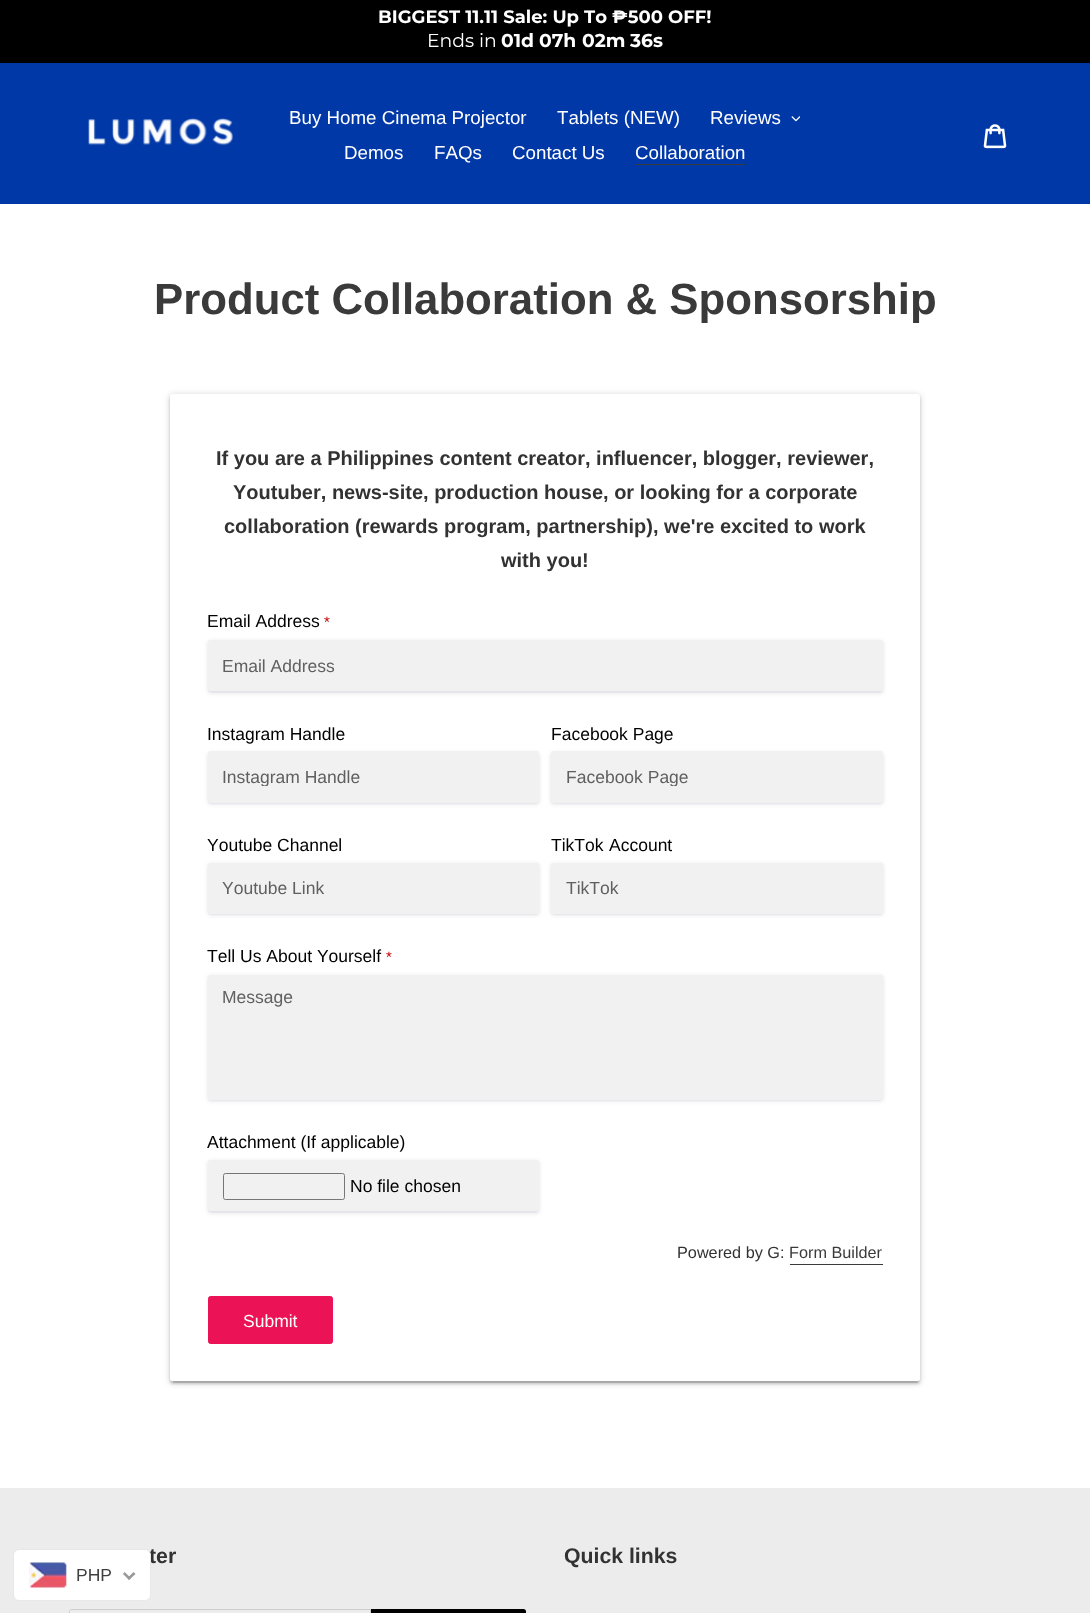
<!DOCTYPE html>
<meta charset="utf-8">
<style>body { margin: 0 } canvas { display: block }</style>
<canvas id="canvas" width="1090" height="1613"></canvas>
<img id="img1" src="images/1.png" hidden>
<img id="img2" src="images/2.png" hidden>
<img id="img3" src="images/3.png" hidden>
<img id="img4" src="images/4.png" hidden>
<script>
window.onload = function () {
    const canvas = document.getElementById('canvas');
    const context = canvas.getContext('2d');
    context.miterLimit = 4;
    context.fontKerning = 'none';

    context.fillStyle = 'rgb(255, 255, 255)';
    context.fillRect(0, 0, 1090, 1613);
    context.fillStyle = 'rgb(0, 0, 0)';
    context.fillRect(0, 0, 1090, 63);
    context.fillStyle = 'rgb(0, 56, 168)';
    context.fillRect(0, 63, 1090, 141);
    context.drawImage(document.getElementById('img1'), 88, 118, 145, 28);
    context.drawImage(document.getElementById('img2'), 791, 116, 9, 6);
    context.fillStyle = 'rgb(58, 58, 58)';
    context.fillRect(635, 164, 110, 1);
    context.drawImage(document.getElementById('img3'), 983, 124, 24, 25);
    context.fillStyle = 'rgba(0, 0, 0, 0.2)';
    context.filter = 'blur(3px)';
    context.beginPath();
    context.roundRect(170, 395, 750, 988, 2.5);
    context.fill();
    context.filter = 'none';
    context.fillStyle = 'rgba(0, 0, 0, 0.12)';
    context.filter = 'blur(0.5px)';
    context.beginPath();
    context.rect(173, 400, 745, 983);
    context.fill();
    context.filter = 'none';
    context.fillStyle = 'rgba(0, 0, 0, 0.14)';
    context.filter = 'blur(1px)';
    context.beginPath();
    context.roundRect(170, 396, 750, 988, 2.5);
    context.fill();
    context.filter = 'none';
    context.fillStyle = 'rgb(255, 255, 255)';
    context.beginPath();
    context.roundRect(170, 394, 750, 987, 2.5);
    context.fill();
    context.fillStyle = 'rgb(250, 250, 250)';
    context.beginPath();
    context.moveTo(208, 690);
    context.bezierCurveTo(208, 692, 209, 693, 210, 693);
    context.lineTo(880, 693);
    context.bezierCurveTo(882, 693, 883, 692, 883, 690);
    context.lineTo(883, 644);
    context.lineTo(882, 642);
    context.lineTo(882, 681);
    context.bezierCurveTo(882, 682, 884, 691, 880, 691);
    context.lineTo(210, 691);
    context.closePath();
    context.fill();
    context.fillStyle = 'rgba(50, 50, 93, 0.15)';
    context.filter = 'blur(2px)';
    context.beginPath();
    context.roundRect(208, 641, 675, 52, 2.5);
    context.fill();
    context.filter = 'none';
    context.fillStyle = 'rgb(241, 241, 241)';
    context.beginPath();
    context.roundRect(208, 640, 675, 51, 2.5);
    context.fill();
    context.fillStyle = 'rgb(250, 250, 250)';
    context.beginPath();
    context.moveTo(208, 802);
    context.bezierCurveTo(208, 803, 209, 804, 210, 804);
    context.lineTo(536, 804);
    context.bezierCurveTo(538, 804, 539, 803, 539, 802);
    context.lineTo(539, 754);
    context.lineTo(539, 800);
    context.bezierCurveTo(539, 801, 538, 802, 536, 802);
    context.lineTo(210, 802);
    context.bezierCurveTo(209, 802, 208, 802, 208, 802);
    context.closePath();
    context.fill();
    context.fillStyle = 'rgba(50, 50, 93, 0.15)';
    context.filter = 'blur(2px)';
    context.beginPath();
    context.roundRect(208, 753, 331, 51, 2.5);
    context.fill();
    context.filter = 'none';
    context.fillStyle = 'rgb(241, 241, 241)';
    context.beginPath();
    context.roundRect(208, 751, 331, 52, 2.5);
    context.fill();
    context.fillStyle = 'rgb(250, 250, 250)';
    context.beginPath();
    context.moveTo(551, 754);
    context.lineTo(551, 802);
    context.bezierCurveTo(551, 803, 552, 804, 554, 804);
    context.lineTo(880, 804);
    context.bezierCurveTo(882, 804, 883, 803, 883, 802);
    context.lineTo(883, 756);
    context.lineTo(882, 754);
    context.lineTo(882, 800);
    context.bezierCurveTo(882, 801, 881, 802, 880, 802);
    context.lineTo(554, 802);
    context.bezierCurveTo(552, 802, 551, 801, 551, 800);
    context.closePath();
    context.fill();
    context.fillStyle = 'rgba(50, 50, 93, 0.15)';
    context.filter = 'blur(2px)';
    context.beginPath();
    context.roundRect(551, 753, 332, 51, 2.5);
    context.fill();
    context.filter = 'none';
    context.fillStyle = 'rgb(241, 241, 241)';
    context.beginPath();
    context.roundRect(551, 751, 332, 52, 2.5);
    context.fill();
    context.fillStyle = 'rgb(250, 250, 250)';
    context.beginPath();
    context.moveTo(208, 913);
    context.bezierCurveTo(208, 914, 209, 915, 210, 915);
    context.lineTo(536, 915);
    context.bezierCurveTo(538, 915, 539, 914, 539, 912);
    context.lineTo(539, 865);
    context.lineTo(539, 911);
    context.bezierCurveTo(539, 913, 538, 914, 536, 914);
    context.lineTo(210, 914);
    context.bezierCurveTo(209, 914, 208, 913, 208, 913);
    context.closePath();
    context.fill();
    context.fillStyle = 'rgba(50, 50, 93, 0.15)';
    context.filter = 'blur(2px)';
    context.beginPath();
    context.roundRect(208, 864, 331, 51, 2.5);
    context.fill();
    context.filter = 'none';
    context.fillStyle = 'rgb(241, 241, 241)';
    context.beginPath();
    context.roundRect(208, 863, 331, 51, 2.5);
    context.fill();
    context.fillStyle = 'rgb(250, 250, 250)';
    context.beginPath();
    context.moveTo(551, 865);
    context.lineTo(551, 912);
    context.bezierCurveTo(551, 914, 552, 915, 554, 915);
    context.lineTo(880, 915);
    context.bezierCurveTo(882, 915, 883, 914, 883, 912);
    context.lineTo(883, 866);
    context.lineTo(882, 865);
    context.lineTo(882, 911);
    context.bezierCurveTo(882, 913, 881, 914, 880, 914);
    context.lineTo(554, 914);
    context.bezierCurveTo(552, 914, 551, 913, 551, 911);
    context.closePath();
    context.fill();
    context.fillStyle = 'rgba(50, 50, 93, 0.15)';
    context.filter = 'blur(2px)';
    context.beginPath();
    context.roundRect(551, 864, 332, 51, 2.5);
    context.fill();
    context.filter = 'none';
    context.fillStyle = 'rgb(241, 241, 241)';
    context.beginPath();
    context.roundRect(551, 863, 332, 51, 2.5);
    context.fill();
    context.fillStyle = 'rgb(250, 250, 250)';
    context.beginPath();
    context.moveTo(208, 1099);
    context.bezierCurveTo(208, 1100, 209, 1101, 210, 1101);
    context.lineTo(880, 1101);
    context.bezierCurveTo(882, 1101, 883, 1100, 883, 1098);
    context.lineTo(883, 978);
    context.lineTo(882, 977);
    context.lineTo(882, 1078);
    context.bezierCurveTo(882, 1079, 886, 1100, 880, 1100);
    context.lineTo(210, 1100);
    context.closePath();
    context.fill();
    context.fillStyle = 'rgba(50, 50, 93, 0.15)';
    context.filter = 'blur(2px)';
    context.beginPath();
    context.roundRect(208, 976, 675, 125, 2.5);
    context.fill();
    context.filter = 'none';
    context.fillStyle = 'rgb(241, 241, 241)';
    context.beginPath();
    context.roundRect(208, 975, 675, 125, 2.5);
    context.fill();
    context.fillStyle = 'rgb(250, 250, 250)';
    context.beginPath();
    context.moveTo(208, 1210);
    context.bezierCurveTo(208, 1212, 209, 1213, 210, 1213);
    context.lineTo(536, 1213);
    context.bezierCurveTo(541, 1213, 539, 1203, 539, 1203);
    context.lineTo(539, 1162);
    context.lineTo(539, 1201);
    context.bezierCurveTo(539, 1202, 541, 1211, 536, 1211);
    context.lineTo(210, 1211);
    context.closePath();
    context.fill();
    context.fillStyle = 'rgba(50, 50, 93, 0.15)';
    context.filter = 'blur(2px)';
    context.beginPath();
    context.roundRect(208, 1161, 331, 52, 2.5);
    context.fill();
    context.filter = 'none';
    context.fillStyle = 'rgb(241, 241, 241)';
    context.beginPath();
    context.roundRect(208, 1160, 331, 51, 2.5);
    context.fill();
    context.beginPath();
    context.roundRect(223.5, 1173.5, 121, 26, 2);
    context.strokeStyle = 'rgb(118, 118, 118)';
    context.stroke();
    context.fillStyle = 'rgb(58, 58, 58)';
    context.fillRect(790, 1264, 93, 1);
    context.fillStyle = 'rgb(235, 18, 86)';
    context.beginPath();
    context.roundRect(208.5, 1296.5, 124, 47, 2);
    context.fill();
    context.strokeStyle = 'rgb(235, 18, 86)';
    context.stroke();
    context.fillStyle = 'rgb(236, 236, 236)';
    context.fillRect(0, 1488, 1090, 125);
    context.beginPath();
    context.moveTo(71.5, 1609.5);
    context.lineTo(370.5, 1609.5);
    context.lineTo(370.5, 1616.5);
    context.lineTo(71.5, 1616.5);
    context.bezierCurveTo(70.5, 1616.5, 69.5, 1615.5, 69.5, 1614.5);
    context.lineTo(69.5, 1611.5);
    context.bezierCurveTo(69.5, 1610.5, 70.5, 1609.5, 71.5, 1609.5);
    context.closePath();
    context.strokeStyle = 'rgb(204, 204, 204)';
    context.stroke();
    context.fillStyle = 'rgb(0, 0, 0)';
    context.beginPath();
    context.moveTo(371, 1609);
    context.lineTo(523.5, 1609);
    context.bezierCurveTo(525, 1609, 526, 1610, 526, 1611.5);
    context.lineTo(526, 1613.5);
    context.bezierCurveTo(526, 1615, 525, 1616, 523.5, 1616);
    context.lineTo(371, 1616);
    context.closePath();
    context.fill();
    context.font = 'bold 18px Montserrat';
    context.fillStyle = 'rgb(255, 255, 255)';
    context.fillText('BIGGEST 11.11 Sale: Up To ₱500 OFF!', 378, 23);
    context.font = '18.75px Montserrat';
    context.fillText('Ends in', 427, 47);
    context.font = 'bold 18.75px Montserrat';
    context.fillText('01d', 501, 47);
    context.fillText('07h', 539, 47);
    context.fillText('02m', 582, 47);
    context.fillText('36s', 630, 47);
    context.font = '18.75px Liberation Sans';
    context.fillText('Buy Home Cinema Projector', 289, 124);
    context.fillText('Tablets (NEW)', 557, 124);
    context.fillText('Reviews', 710, 124);
    context.fillText('Demos', 344, 159);
    context.fillText('FAQs', 434, 159);
    context.fillText('Contact Us', 512, 159);
    context.fillText('Collaboration', 635, 159);
    context.font = 'bold 43.75px Liberation Sans';
    context.fillStyle = 'rgb(58, 58, 58)';
    context.fillText('Product Collaboration & Sponsorship', 154, 314);
    context.font = 'bold 20px Liberation Sans';
    context.fillStyle = 'rgb(51, 50, 50)';
    context.fillText('If you are a Philippines content creator, influencer, blogger, reviewer,', 216, 465);
    context.fillText('Youtuber, news-site, production house, or looking for a corporate', 233, 499);
    context.fillText('collaboration (rewards program, partnership), we\'re excited to work', 224, 533);
    context.fillText('with you!', 501, 567);
    context.font = '17.5px Liberation Sans';
    context.fillStyle = 'rgb(0, 0, 0)';
    context.fillText('Email Address', 207, 627);
    context.font = '15px Liberation Sans';
    context.fillStyle = 'rgb(193, 0, 0)';
    context.fillText('*', 324, 627);
    context.font = '17.5px Liberation Sans';
    context.fillStyle = 'rgb(96, 96, 96)';
    context.fillText('Email Address', 222, 672);
    context.fillStyle = 'rgb(0, 0, 0)';
    context.fillText('Instagram Handle', 207, 740);
    context.save();
    context.beginPath();
    context.rect(223, 766, 301, 20);
    context.clip();
    context.fillStyle = 'rgb(96, 96, 96)';
    context.fillText('Instagram Handle', 222, 783);
    context.restore();
    context.fillText('Facebook Page', 551, 740);
    context.save();
    context.beginPath();
    context.rect(566, 766, 302, 20);
    context.clip();
    context.fillStyle = 'rgb(96, 96, 96)';
    context.fillText('Facebook Page', 566, 783);
    context.restore();
    context.fillText('Youtube Channel', 207, 851);
    context.fillStyle = 'rgb(96, 96, 96)';
    context.fillText('Youtube Link', 222, 894);
    context.fillStyle = 'rgb(0, 0, 0)';
    context.fillText('TikTok', 551, 851);
    context.fillText('Account', 609, 851);
    context.fillStyle = 'rgb(96, 96, 96)';
    context.fillText('TikTok', 566, 894);
    context.fillStyle = 'rgb(0, 0, 0)';
    context.fillText('Tell Us About Yourself', 207, 962);
    context.font = '15px Liberation Sans';
    context.fillStyle = 'rgb(193, 0, 0)';
    context.fillText('*', 386, 962);
    context.font = '17.5px Liberation Sans';
    context.fillStyle = 'rgb(96, 96, 96)';
    context.fillText('Message', 222, 1003);
    context.fillStyle = 'rgb(0, 0, 0)';
    context.fillText('Attachment (If applicable)', 207, 1148);
    context.fillText('No file chosen', 350, 1192);
    context.font = '16.25px Liberation Sans';
    context.fillStyle = 'rgb(51, 50, 50)';
    context.fillText('Powered by G:', 677, 1258);
    context.fillStyle = 'rgb(58, 58, 58)';
    context.fillText('Form Builder', 789, 1258);
    context.font = '17.5px Liberation Sans';
    context.fillStyle = 'rgb(255, 255, 255)';
    context.fillText('Submit', 243, 1327);
    context.font = 'bold 21.25px Liberation Sans';
    context.fillStyle = 'rgb(51, 50, 50)';
    context.fillText('ter', 149, 1563);
    context.fillText('Quick links', 564, 1563);
    context.fillStyle = 'rgb(255, 255, 255)';
    context.beginPath();
    context.roundRect(13.5, 1549.5, 137, 51, 5.5);
    context.fill();
    context.strokeStyle = 'rgb(232, 232, 232)';
    context.stroke();
    context.drawImage(document.getElementById('img4'), 29, 1562, 38, 26);
    context.font = '17.5px Liberation Sans';
    context.fillStyle = 'rgb(64, 63, 63)';
    context.fillText('PHP', 76, 1581);
    context.fillStyle = 'rgb(153, 153, 153)';
    context.beginPath();
    context.moveTo(133.5, 1572);
    context.lineTo(135.5, 1574);
    context.lineTo(129, 1580);
    context.lineTo(127.5, 1578);
    context.closePath();
    context.fill();
    context.beginPath();
    context.moveTo(124.5, 1572);
    context.lineTo(131, 1578);
    context.lineTo(129, 1580);
    context.lineTo(123, 1574);
    context.closePath();
    context.fill();
};
</script>
